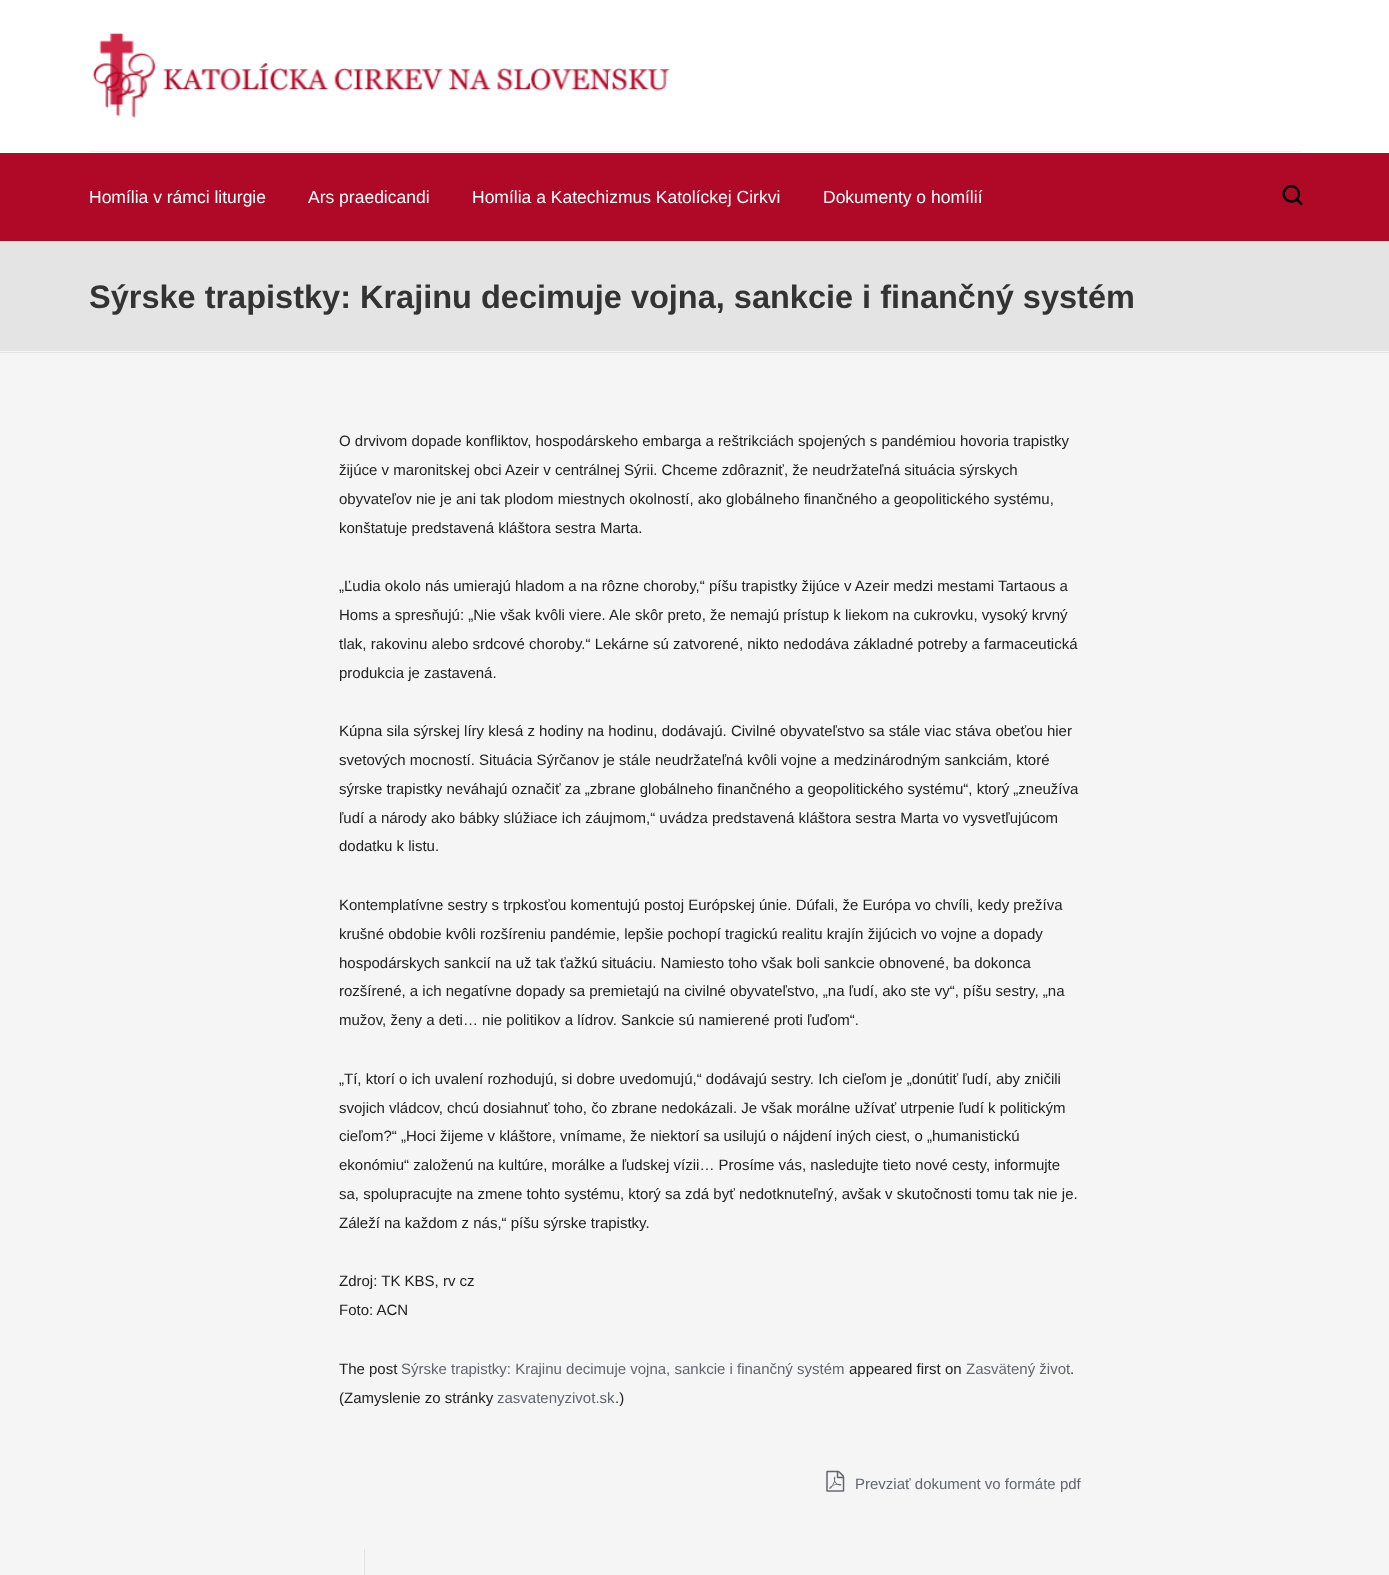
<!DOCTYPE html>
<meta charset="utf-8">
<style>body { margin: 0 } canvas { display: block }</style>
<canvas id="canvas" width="1389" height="1575"></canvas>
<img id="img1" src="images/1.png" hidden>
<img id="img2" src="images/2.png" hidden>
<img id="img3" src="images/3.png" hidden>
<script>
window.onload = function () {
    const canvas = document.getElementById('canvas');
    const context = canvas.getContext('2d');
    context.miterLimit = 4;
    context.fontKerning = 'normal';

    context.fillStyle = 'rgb(245, 245, 245)';
    context.fillRect(0, 0, 1389, 1575);
    context.fillStyle = 'rgb(255, 255, 255)';
    context.fillRect(0, 0, 1389, 153);
    context.drawImage(document.getElementById('img1'), 93, 33, 577, 85);
    context.fillStyle = 'rgb(240, 240, 240)';
    context.fillRect(89, 151, 1212, 1);
    context.fillStyle = 'rgb(176, 9, 39)';
    context.fillRect(0, 153, 1389, 88);
    context.drawImage(document.getElementById('img2'), 1282, 185, 21, 21);
    context.fillStyle = 'rgb(228, 228, 228)';
    context.fillRect(0, 241, 1389, 112);
    context.fillStyle = 'rgb(245, 245, 245)';
    context.fillRect(0, 351, 1389, 1);
    context.drawImage(document.getElementById('img3'), 826, 1470, 19, 22);
    context.fillStyle = 'rgb(227, 227, 227)';
    context.fillRect(364, 1549, 1, 26);
    context.font = '17.5px Liberation Sans';
    context.fillStyle = 'rgb(255, 255, 255)';
    context.fillText('Homília v rámci liturgie', 89, 203);
    context.fillText('Ars praedicandi', 308, 203);
    context.fillText('Homília a Katechizmus Katolíckej Cirkvi', 472, 203);
    context.fillText('Dokumenty o homílií', 823, 203);
    context.font = 'bold 32.5px Liberation Sans';
    context.fillStyle = 'rgb(51, 51, 51)';
    context.fillText('Sýrske trapistky: Krajinu decimuje vojna, sankcie i finančný systém', 89, 308);
    context.font = '15px Liberation Sans';
    context.fillStyle = 'rgb(34, 34, 34)';
    context.fillText('O drvivom dopade konfliktov, hospodárskeho embarga a reštrikciách spojených s pandémiou hovoria trapistky', 339, 446);
    context.fillText('žijúce v maronitskej obci Azeir v centrálnej Sýrii. Chceme zdôrazniť, že neudržateľná situácia sýrskych', 339, 475);
    context.fillText('obyvateľov nie je ani tak plodom miestnych okolností, ako globálneho finančného a geopolitického systému,', 339, 504);
    context.fillText('konštatuje predstavená kláštora sestra Marta.', 339, 533);
    context.fillText('„Ľudia okolo nás umierajú hladom a na rôzne choroby,“ píšu trapistky žijúce v Azeir medzi mestami Tartaous a', 339, 591);
    context.fillText('Homs a spresňujú: „Nie však kvôli viere. Ale skôr preto, že nemajú prístup k liekom na cukrovku, vysoký krvný', 339, 620);
    context.fillText('tlak, rakovinu alebo srdcové choroby.“ Lekárne sú zatvorené, nikto nedodáva základné potreby a farmaceutická', 339, 649);
    context.fillText('produkcia je zastavená.', 339, 678);
    context.fillText('Kúpna sila sýrskej líry klesá z hodiny na hodinu, dodávajú. Civilné obyvateľstvo sa stále viac stáva obeťou hier', 339, 736);
    context.fillText('svetových mocností. Situácia Sýrčanov je stále neudržateľná kvôli vojne a medzinárodným sankciám, ktoré', 339, 765);
    context.fillText('sýrske trapistky neváhajú označiť za „zbrane globálneho finančného a geopolitického systému“, ktorý „zneužíva', 339, 794);
    context.fillText('ľudí a národy ako bábky slúžiace ich záujmom,“ uvádza predstavená kláštora sestra Marta vo vysvetľujúcom', 339, 823);
    context.fillText('dodatku k listu.', 339, 851);
    context.fillText('Kontemplatívne sestry s trpkosťou komentujú postoj Európskej únie. Dúfali, že Európa vo chvíli, kedy prežíva', 339, 910);
    context.fillText('krušné obdobie kvôli rozšíreniu pandémie, lepšie pochopí tragickú realitu krajín žijúcich vo vojne a dopady', 339, 939);
    context.fillText('hospodárskych sankcií na už tak ťažkú situáciu. Namiesto toho však boli sankcie obnovené, ba dokonca', 339, 968);
    context.fillText('rozšírené, a ich negatívne dopady sa premietajú na civilné obyvateľstvo, „na ľudí, ako ste vy“, píšu sestry, „na', 339, 996);
    context.fillText('mužov, ženy a deti… nie politikov a lídrov. Sankcie sú namierené proti ľuďom“.', 339, 1025);
    context.fillText('„Tí, ktorí o ich uvalení rozhodujú, si dobre uvedomujú,“ dodávajú sestry. Ich cieľom je „donútiť ľudí, aby zničili', 339, 1084);
    context.fillText('svojich vládcov, chcú dosiahnuť toho, čo zbrane nedokázali. Je však morálne užívať utrpenie ľudí k politickým', 339, 1113);
    context.fillText('cieľom?“ „Hoci žijeme v kláštore, vnímame, že niektorí sa usilujú o nájdení iných ciest, o „humanistickú', 339, 1141);
    context.fillText('ekonómiu“ založenú na kultúre, morálke a ľudskej vízii… Prosíme vás, nasledujte tieto nové cesty, informujte', 339, 1170);
    context.fillText('sa, spolupracujte na zmene tohto systému, ktorý sa zdá byť nedotknuteľný, avšak v skutočnosti tomu tak nie je.', 339, 1199);
    context.fillText('Záleží na každom z nás,“ píšu sýrske trapistky.', 339, 1228);
    context.fillText('Zdroj: TK KBS, rv cz', 339, 1286);
    context.fillText('Foto: ACN', 339, 1315);
    context.fillText('The post', 339, 1374);
    context.fillStyle = 'rgb(98, 102, 108)';
    context.fillText('Sýrske trapistky: Krajinu decimuje vojna, sankcie i finančný systém', 401, 1374);
    context.fillStyle = 'rgb(34, 34, 34)';
    context.fillText('appeared first on', 849, 1374);
    context.fillStyle = 'rgb(98, 102, 108)';
    context.fillText('Zasvätený život', 966, 1374);
    context.fillStyle = 'rgb(34, 34, 34)';
    context.fillText('.', 1070, 1374);
    context.fillText('(Zamyslenie zo stránky', 339, 1403);
    context.fillStyle = 'rgb(98, 102, 108)';
    context.fillText('zasvatenyzivot.sk', 497, 1403);
    context.fillStyle = 'rgb(34, 34, 34)';
    context.fillText('.)', 615, 1403);
    context.fillStyle = 'rgb(98, 102, 108)';
    context.fillText('Prevziať dokument vo formáte pdf', 855, 1489);
};
</script>
